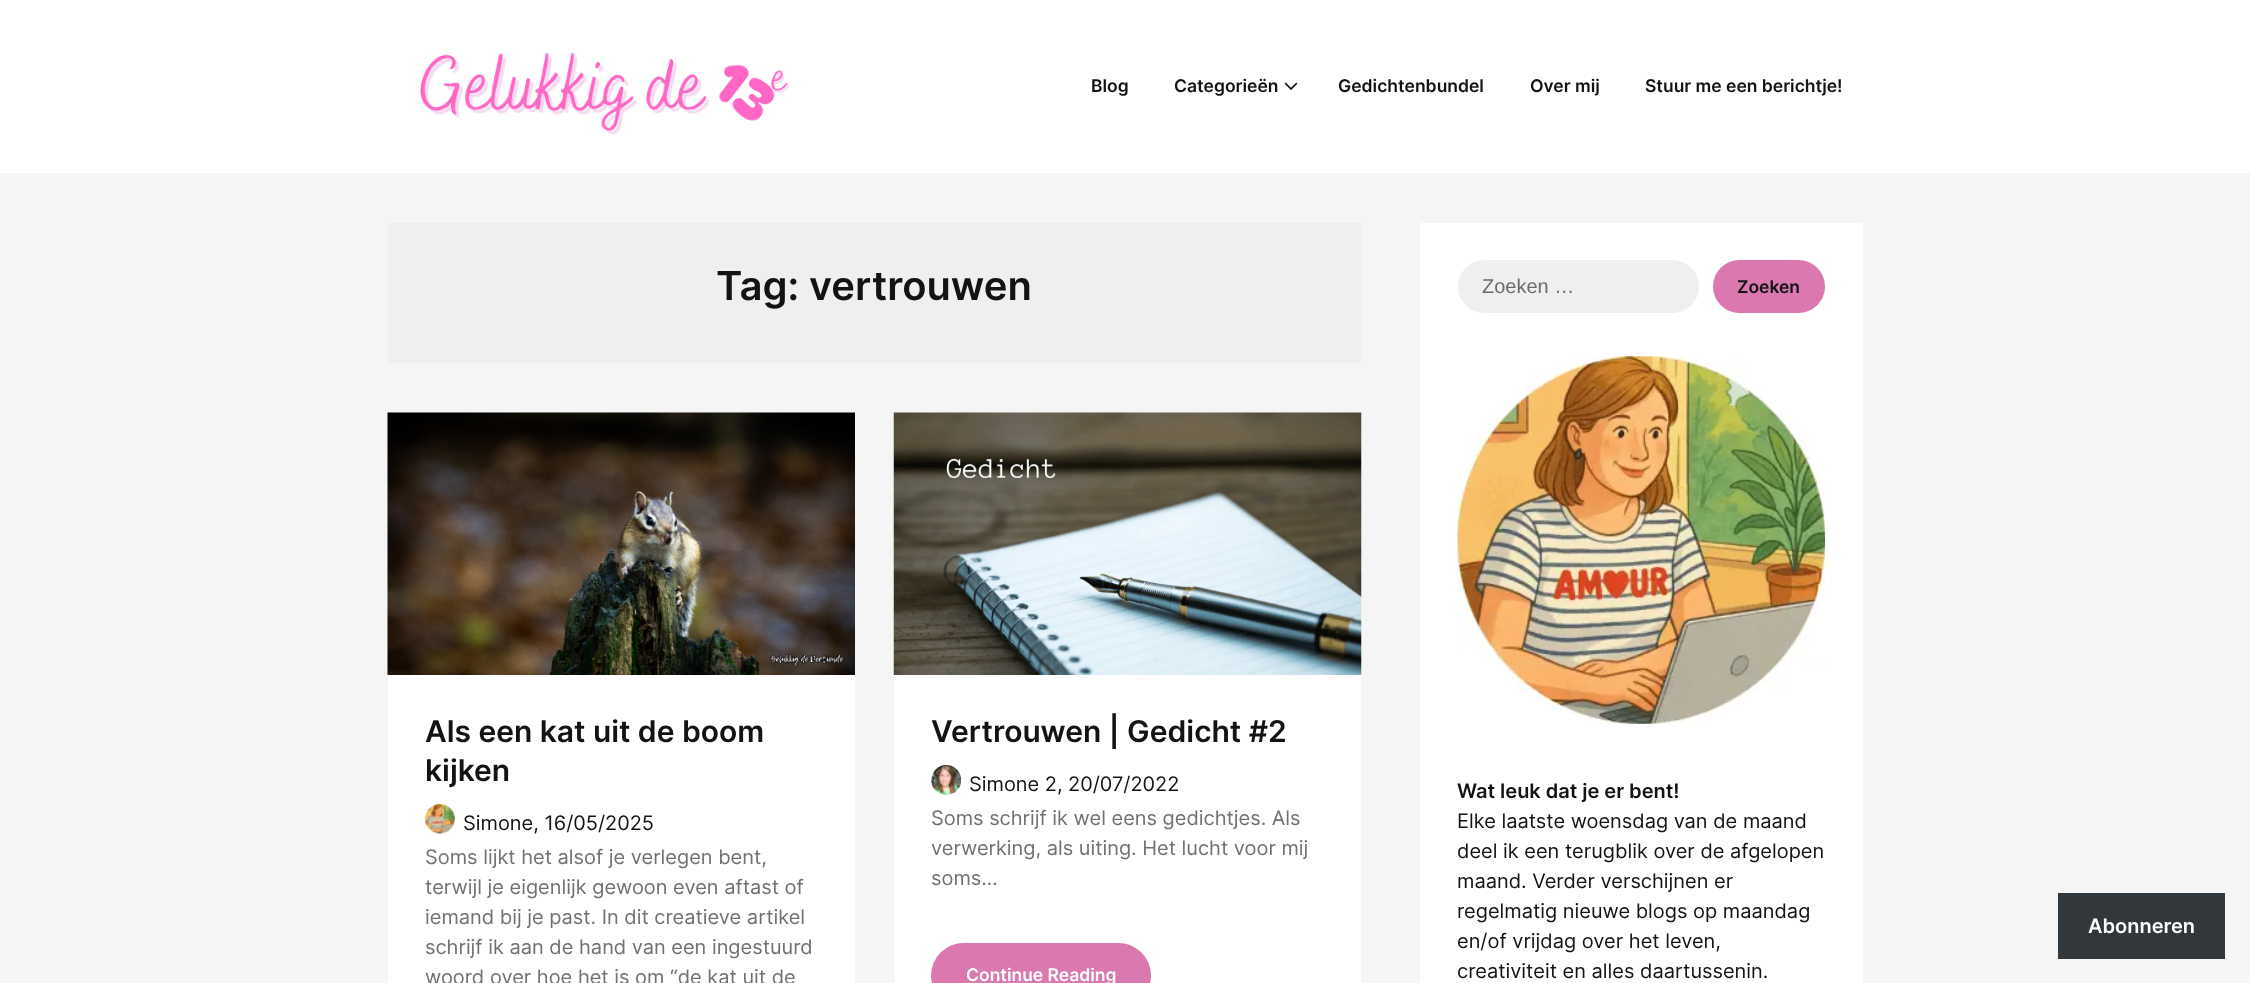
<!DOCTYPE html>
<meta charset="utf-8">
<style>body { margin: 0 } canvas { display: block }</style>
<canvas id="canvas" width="2250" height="983"></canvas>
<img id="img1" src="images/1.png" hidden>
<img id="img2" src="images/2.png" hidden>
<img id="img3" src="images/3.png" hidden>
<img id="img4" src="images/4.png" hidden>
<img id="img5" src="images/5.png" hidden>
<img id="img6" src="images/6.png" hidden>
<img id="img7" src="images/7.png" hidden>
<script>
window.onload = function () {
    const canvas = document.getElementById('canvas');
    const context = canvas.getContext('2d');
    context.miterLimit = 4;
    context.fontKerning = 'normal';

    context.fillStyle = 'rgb(245, 245, 245)';
    context.fillRect(0, 0, 2250, 983);
    context.fillStyle = 'rgb(255, 255, 255)';
    context.fillRect(0, 0, 2250, 173);
    context.drawImage(document.getElementById('img1'), 420, 52, 369, 83);
    context.drawImage(document.getElementById('img2'), 1284, 82, 14, 8);
    context.fillStyle = 'rgb(239, 239, 239)';
    context.fillRect(388, 223, 973, 140);
    context.fillStyle = 'rgb(255, 255, 255)';
    context.fillRect(388, 675, 467, 308);
    context.drawImage(document.getElementById('img3'), 387, 412, 468, 263);
    context.drawImage(document.getElementById('img4'), 425, 803, 30, 31);
    context.fillRect(894, 675, 467, 308);
    context.drawImage(document.getElementById('img5'), 893, 412, 469, 263);
    context.drawImage(document.getElementById('img6'), 931, 765, 31, 30);
    context.fillStyle = 'rgb(219, 120, 176)';
    context.beginPath();
    context.roundRect(931, 943, 220, 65, 32.5);
    context.fill();
    context.fillStyle = 'rgb(255, 255, 255)';
    context.fillRect(1420, 223, 443, 760);
    context.fillStyle = 'rgb(239, 239, 239)';
    context.beginPath();
    context.roundRect(1458, 260, 241, 53, 26.5);
    context.fill();
    context.fillStyle = 'rgb(219, 120, 176)';
    context.beginPath();
    context.roundRect(1713, 260, 112, 53, 26.5);
    context.fill();
    context.drawImage(document.getElementById('img7'), 1457, 356, 368, 368);
    context.fillStyle = 'rgb(50, 55, 60)';
    context.fillRect(2058, 893, 167, 66);
    context.font = '600 17.5px Inter';
    context.fillStyle = 'rgb(17, 19, 20)';
    context.fillText('Blog', 1091, 92);
    context.fillText('Categorieën', 1174, 92);
    context.fillText('Gedichtenbundel', 1338, 92);
    context.fillText('Over mij', 1530, 92);
    context.fillText('Stuur me een berichtje!', 1645, 92);
    context.font = '600 40px Inter';
    context.fillText('Tag: vertrouwen', 716, 300);
    context.font = '600 30px Inter';
    context.fillText('Als een kat uit de boom', 425, 742);
    context.fillText('kijken', 425, 781);
    context.font = '20px Inter';
    context.fillText('Simone, 16/05/2025', 463, 830);
    context.fillStyle = 'rgb(113, 113, 113)';
    context.fillText('Soms lijkt het alsof je verlegen bent,', 425, 864);
    context.fillText('terwijl je eigenlijk gewoon even aftast of', 425, 894);
    context.fillText('iemand bij je past. In dit creatieve artikel', 425, 924);
    context.fillText('schrijf ik aan de hand van een ingestuurd', 425, 954);
    context.fillText('woord over hoe het is om “de kat uit de', 425, 984);
    context.font = '600 30px Inter';
    context.fillStyle = 'rgb(17, 19, 20)';
    context.fillText('Vertrouwen | Gedicht #2', 931, 742);
    context.font = '20px Inter';
    context.fillText('Simone 2, 20/07/2022', 969, 791);
    context.fillStyle = 'rgb(113, 113, 113)';
    context.fillText('Soms schrijf ik wel eens gedichtjes. Als', 931, 825);
    context.fillText('verwerking, als uiting. Het lucht voor mij', 931, 855);
    context.fillText('soms…', 931, 885);
    context.font = '600 17.5px Inter';
    context.fillStyle = 'rgb(255, 255, 255)';
    context.fillText('Continue Reading', 966, 981);
    context.font = '20px Liberation Sans';
    context.fillStyle = 'rgb(106, 107, 108)';
    context.fillText('Zoeken …', 1482, 293);
    context.font = '600 17.5px Inter';
    context.fillStyle = 'rgb(17, 19, 20)';
    context.fillText('Zoeken', 1737, 293);
    context.font = '600 20px Inter';
    context.fillText('Wat leuk dat je er bent!', 1457, 798);
    context.font = '20px Inter';
    context.fillText('Elke laatste woensdag van de maand', 1457, 828);
    context.fillText('deel ik een terugblik over de afgelopen', 1457, 858);
    context.fillText('maand. Verder verschijnen er', 1457, 888);
    context.fillText('regelmatig nieuwe blogs op maandag', 1457, 918);
    context.fillText('en/of vrijdag over het leven,', 1457, 948);
    context.fillText('creativiteit en alles daartussenin.', 1457, 978);
    context.font = '600 20px Inter';
    context.fillStyle = 'rgb(255, 255, 255)';
    context.fillText('Abonneren', 2088, 933);
};
</script>
